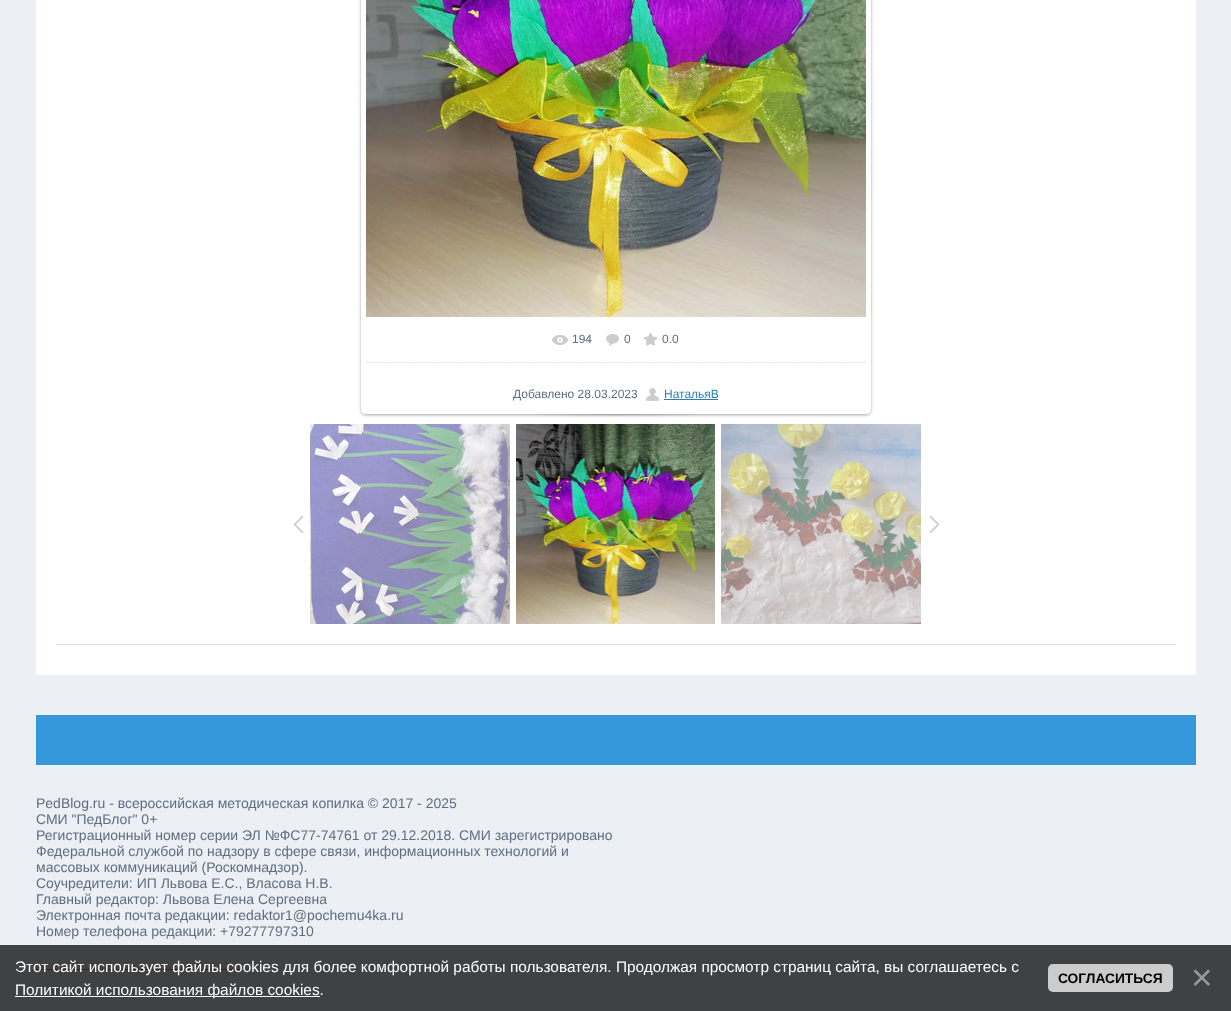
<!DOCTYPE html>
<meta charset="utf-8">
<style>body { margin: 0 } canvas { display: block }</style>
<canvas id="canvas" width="1231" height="1011"></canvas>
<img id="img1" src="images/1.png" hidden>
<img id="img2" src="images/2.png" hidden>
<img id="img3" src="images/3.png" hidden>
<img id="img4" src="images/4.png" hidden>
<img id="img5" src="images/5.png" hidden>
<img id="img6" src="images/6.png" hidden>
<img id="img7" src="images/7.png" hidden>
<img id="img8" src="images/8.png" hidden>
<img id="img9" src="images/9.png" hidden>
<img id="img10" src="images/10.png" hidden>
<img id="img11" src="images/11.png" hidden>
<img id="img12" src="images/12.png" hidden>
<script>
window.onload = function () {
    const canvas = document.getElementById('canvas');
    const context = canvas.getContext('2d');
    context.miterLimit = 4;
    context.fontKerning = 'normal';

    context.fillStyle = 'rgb(236, 239, 243)';
    context.fillRect(0, 0, 1231, 1011);
    context.fillStyle = 'rgb(255, 255, 255)';
    context.fillRect(36, 0, 1160, 675);
    context.save();
    context.beginPath();
    context.moveTo(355, 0);
    context.lineTo(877, 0);
    context.lineTo(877, 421);
    context.lineTo(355, 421);
    context.closePath();
    context.moveTo(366, -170);
    context.lineTo(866, -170);
    context.bezierCurveTo(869, -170, 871, -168, 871, -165);
    context.lineTo(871, 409);
    context.bezierCurveTo(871, 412, 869, 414, 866, 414);
    context.lineTo(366, 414);
    context.bezierCurveTo(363, 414, 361, 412, 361, 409);
    context.lineTo(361, -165);
    context.bezierCurveTo(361, -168, 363, -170, 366, -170);
    context.closePath();
    context.clip('evenodd');
    context.fillStyle = 'rgba(0, 0, 0, 0.37)';
    context.filter = 'blur(1.5px)';
    context.beginPath();
    context.roundRect(361, -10, 510, 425, 5);
    context.fill();
    context.filter = 'none';
    context.restore();
    context.drawImage(document.getElementById('img1'), 366, 0, 500, 317);
    context.drawImage(document.getElementById('img2'), 552, 335, 16, 10);
    context.drawImage(document.getElementById('img3'), 606, 334, 13, 12);
    context.drawImage(document.getElementById('img4'), 644, 333, 13, 13);
    context.drawImage(document.getElementById('img5'), 366, 362, 500, 1);
    context.drawImage(document.getElementById('img6'), 646, 388, 13, 13);
    context.fillStyle = 'rgb(41, 128, 185)';
    context.fillRect(664, 399, 54, 1);
    context.drawImage(document.getElementById('img7'), 536, 414, 161, 3);
    context.drawImage(document.getElementById('img8'), 293, 516, 11, 17);
    context.drawImage(document.getElementById('img9'), 310, 424, 200, 200);
    context.drawImage(document.getElementById('img10'), 516, 424, 199, 200);
    context.drawImage(document.getElementById('img11'), 721, 424, 200, 200);
    context.drawImage(document.getElementById('img12'), 929, 516, 11, 17);
    context.fillStyle = 'rgb(219, 225, 232)';
    context.fillRect(56, 644, 1120, 1);
    context.fillStyle = 'rgb(52, 152, 219)';
    context.fillRect(36, 715, 1160, 50);
    context.fillStyle = 'rgb(242, 121, 53)';
    context.fillRect(36, 969, 206, 1);
    context.fillStyle = 'rgba(0, 0, 0, 0.73)';
    context.fillRect(0, 945, 1231, 66);
    context.fillStyle = 'rgb(255, 255, 255)';
    context.fillRect(15, 996, 305, 1);
    context.fillStyle = 'rgb(204, 204, 204)';
    context.beginPath();
    context.roundRect(1048, 964, 125, 28, 5);
    context.fill();
    context.font = '12px Liberation Sans';
    context.fillStyle = 'rgb(94, 109, 129)';
    context.fillText('194', 572, 343);
    context.fillText('0', 624, 343);
    context.fillText('0.0', 662, 343);
    context.fillText('Добавлено 28.03.2023', 513, 398);
    context.fillStyle = 'rgb(41, 128, 185)';
    context.fillText('НатальяВ', 664, 398);
    context.font = '14px Liberation Sans';
    context.fillStyle = 'rgb(94, 109, 129)';
    context.fillText('PedBlog.ru - всероссийская методическая копилка © 2017 - 2025', 36, 808);
    context.fillText('СМИ "ПедБлог" 0+', 36, 824);
    context.fillText('Регистрационный номер серии ЭЛ №ФС77-74761 от 29.12.2018. СМИ зарегистрировано', 36, 840);
    context.fillText('Федеральной службой по надзору в сфере связи, информационных технологий и', 36, 856);
    context.fillText('массовых коммуникаций (Роскомнадзор).', 36, 872);
    context.fillText('Соучредители: ИП Львова Е.С., Власова Н.В.', 36, 888);
    context.fillText('Главный редактор: Львова Елена Сергеевна', 36, 904);
    context.fillText('Электронная почта редакции: redaktor1@pochemu4ka.ru', 36, 920);
    context.fillText('Номер телефона редакции: +79277797310', 36, 936);
    context.font = '15.4px Liberation Sans';
    context.fillStyle = 'rgb(255, 255, 255)';
    context.fillText('Этот сайт использует файлы cookies для более комфортной работы пользователя. Продолжая просмотр страниц сайта, вы соглашаетесь с', 15, 972);
    context.fillText('Политикой использования файлов cookies.', 15, 995);
    context.font = 'bold 13.75px Liberation Sans';
    context.fillStyle = 'rgb(0, 0, 0)';
    context.fillText('СОГЛАСИТЬСЯ', 1058, 983);
    context.font = '37px Liberation Sans';
    context.fillStyle = 'rgb(153, 153, 153)';
    context.fillText('×', 1191, 990);
};
</script>
